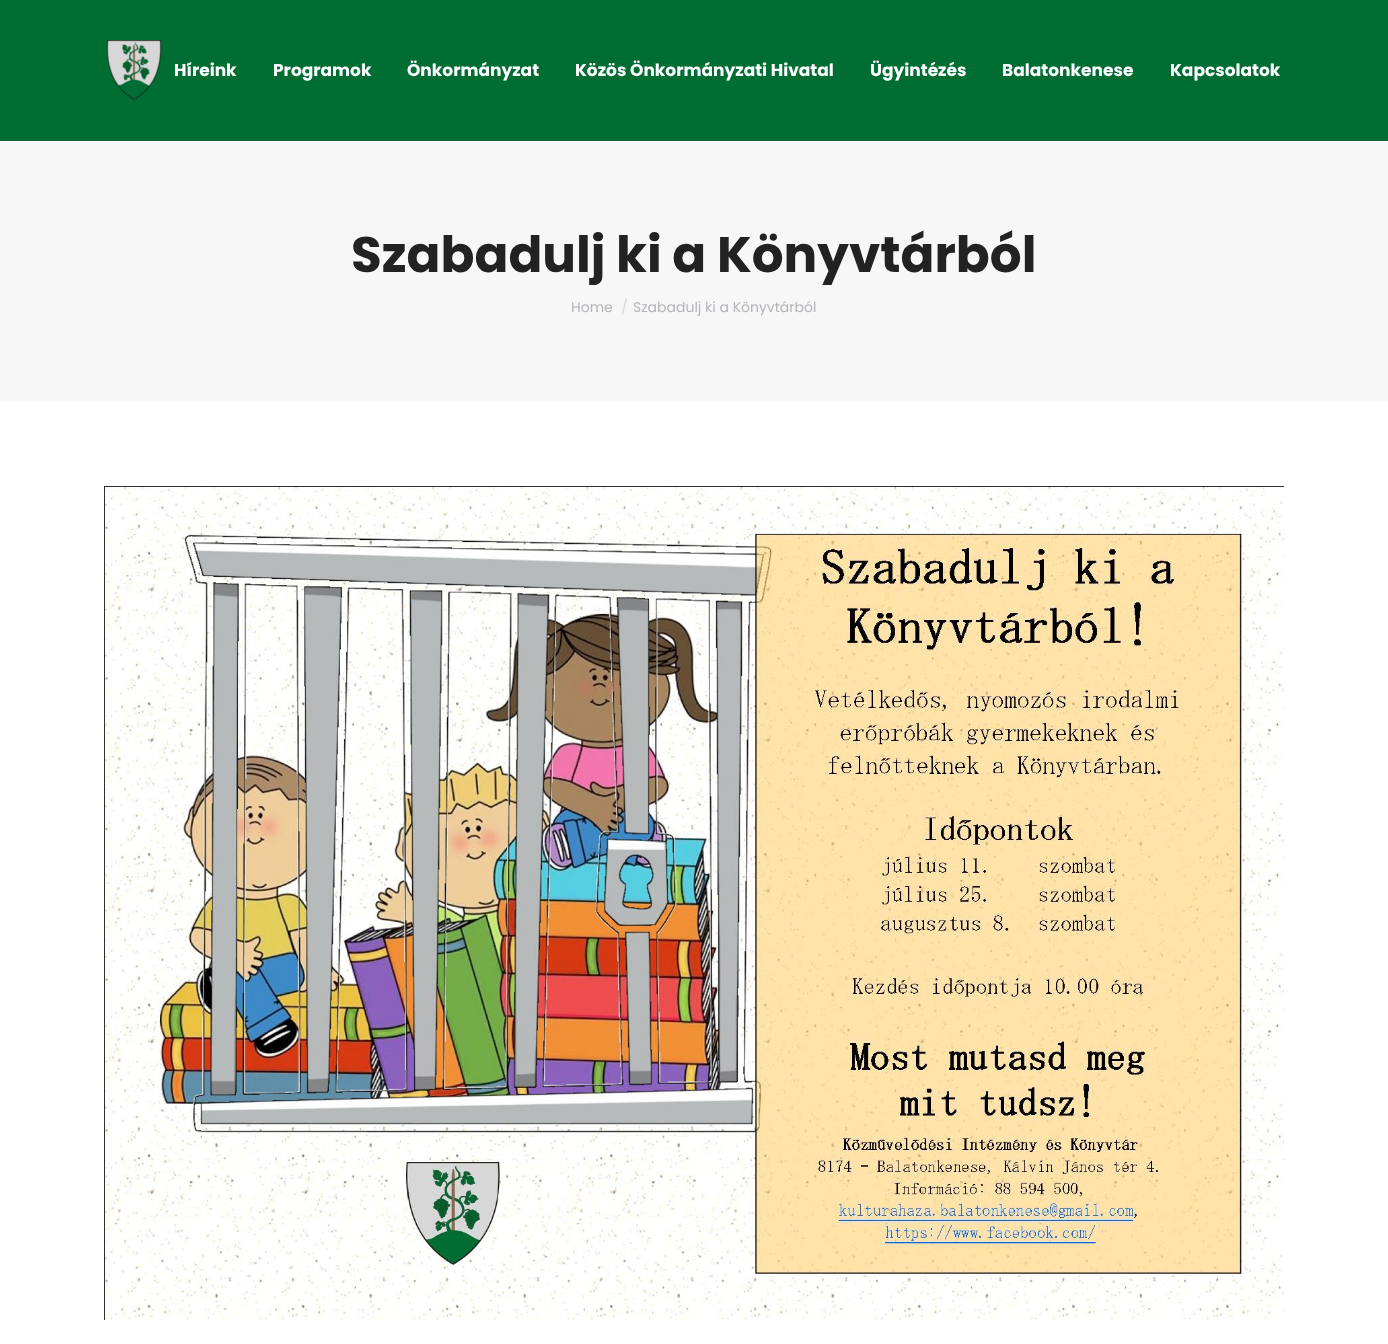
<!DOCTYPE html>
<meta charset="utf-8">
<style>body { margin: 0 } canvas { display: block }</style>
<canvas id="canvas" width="1388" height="1344"></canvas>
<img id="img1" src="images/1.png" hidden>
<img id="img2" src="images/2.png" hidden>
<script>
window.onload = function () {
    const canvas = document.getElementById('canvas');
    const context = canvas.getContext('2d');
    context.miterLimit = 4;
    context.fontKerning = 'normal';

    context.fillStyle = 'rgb(255, 255, 255)';
    context.fillRect(0, 0, 1388, 1344);
    context.fillStyle = 'rgb(0, 109, 51)';
    context.fillRect(0, 0, 1388, 140);
    context.fillStyle = 'rgb(6, 103, 51)';
    context.fillRect(0, 140, 1388, 1);
    context.drawImage(document.getElementById('img1'), 106, 40, 56, 60);
    context.fillStyle = 'rgb(247, 247, 247)';
    context.fillRect(0, 141, 1388, 260);
    context.drawImage(document.getElementById('img2'), 104, 486, 1180, 834);
    context.font = 'bold 17px Poppins';
    context.fillStyle = 'rgb(255, 255, 255)';
    context.fillText('Híreink', 174, 76);
    context.fillText('Programok', 273, 76);
    context.fillText('Önkormányzat', 407, 76);
    context.fillText('Közös Önkormányzati Hivatal', 575, 76);
    context.fillText('Ügyintézés', 870, 76);
    context.fillText('Balatonkenese', 1002, 76);
    context.fillText('Kapcsolatok', 1170, 76);
    context.save();
    context.beginPath();
    context.rect(351, 225, 686, 60);
    context.clip();
    context.font = 'bold 50px Poppins';
    context.fillStyle = 'rgb(34, 34, 34)';
    context.fillText('Szabadulj ki a Könyvtárból', 351, 272);
    context.restore();
    context.font = '14px Poppins';
    context.fillStyle = 'rgb(180, 181, 187)';
    context.fillText('Home', 571, 312);
    context.fillStyle = 'rgb(214, 214, 217)';
    context.fillText('/', 621, 312);
    context.fillStyle = 'rgb(180, 181, 187)';
    context.fillText('Szabadulj ki a Könyvtárból', 633, 312);
};
</script>
